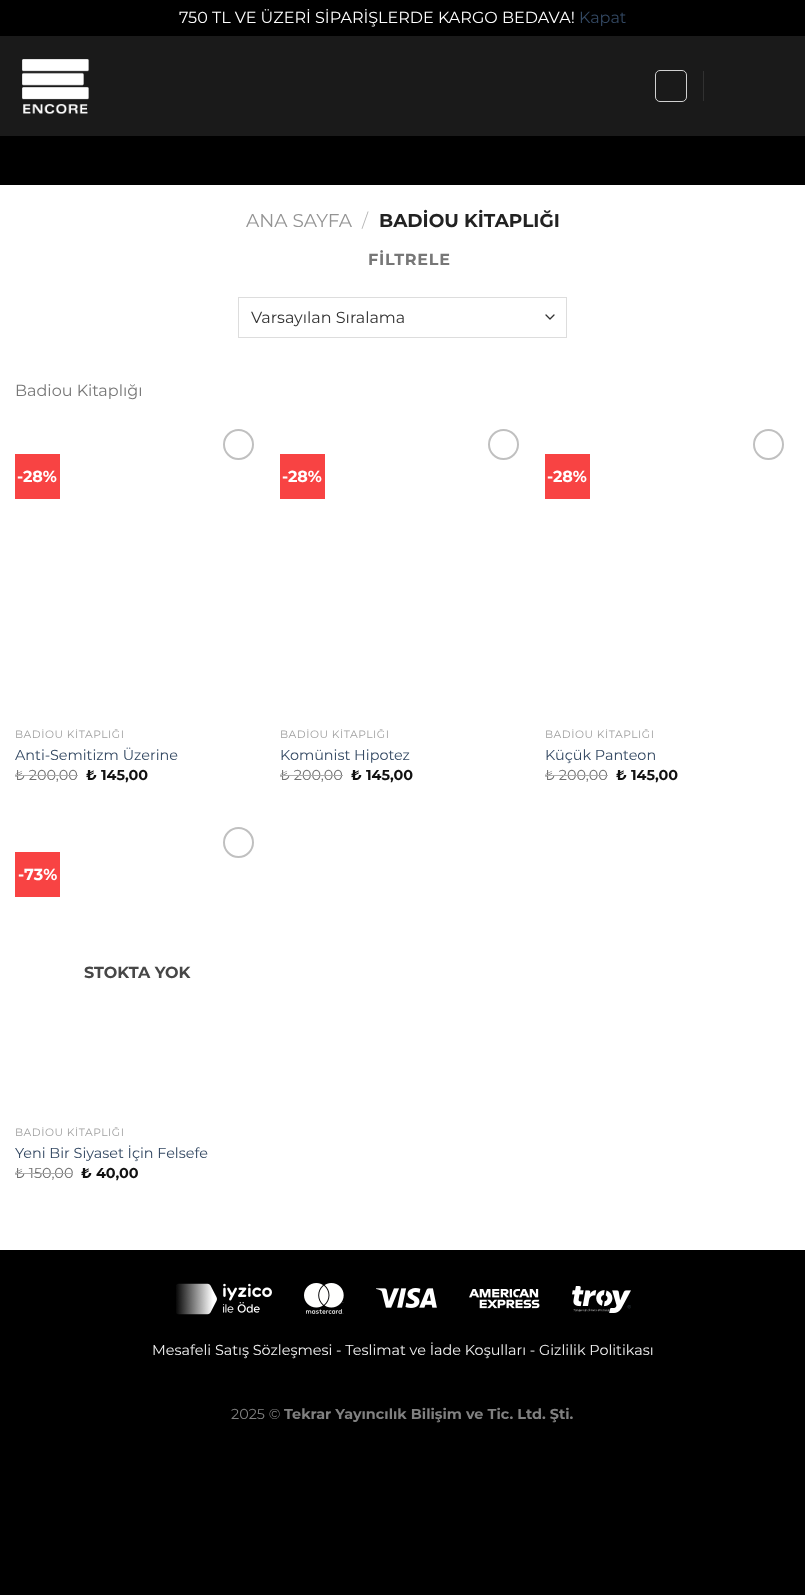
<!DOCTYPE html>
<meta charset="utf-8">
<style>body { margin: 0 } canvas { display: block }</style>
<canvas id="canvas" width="805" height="1595"></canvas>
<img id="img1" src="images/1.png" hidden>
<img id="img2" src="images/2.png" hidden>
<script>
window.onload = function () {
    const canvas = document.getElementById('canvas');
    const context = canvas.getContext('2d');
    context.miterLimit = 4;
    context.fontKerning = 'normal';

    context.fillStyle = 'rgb(0, 0, 0)';
    context.fillRect(0, 0, 805, 1595);
    context.fillStyle = 'rgb(255, 255, 255)';
    context.fillRect(0, 185, 805, 1065);
    context.fillStyle = 'rgb(26, 26, 26)';
    context.fillRect(0, 36, 805, 100);
    context.drawImage(document.getElementById('img1'), 22, 59, 67, 55);
    context.beginPath();
    context.roundRect(655.5, 70.5, 31, 31, 4.5);
    context.strokeStyle = 'rgb(209, 209, 209)';
    context.stroke();
    context.fillStyle = 'rgb(49, 49, 49)';
    context.fillRect(703, 71, 1, 30);
    context.beginPath();
    context.moveTo(546, 315);
    context.lineTo(550, 319);
    context.lineTo(554, 315);
    context.strokeStyle = 'rgb(51, 51, 51)';
    context.lineWidth = 1.3;
    context.lineCap = 'round';
    context.lineJoin = 'round';
    context.stroke();
    context.strokeStyle = 'rgb(221, 221, 221)';
    context.lineWidth = 1;
    context.lineJoin = 'miter';
    context.strokeRect(238.5, 297.5, 328, 40);
    context.fillStyle = 'rgb(248, 67, 67)';
    context.fillRect(15, 454, 45, 45);
    context.beginPath();
    context.arc(238.5, 444.5, 14.5, 0, 2 * Math.PI);
    context.strokeStyle = 'rgb(192, 192, 192)';
    context.lineWidth = 2;
    context.stroke();
    context.fillRect(280, 454, 45, 45);
    context.beginPath();
    context.arc(503.5, 444.5, 14.5, 0, 2 * Math.PI);
    context.stroke();
    context.fillRect(545, 454, 45, 45);
    context.beginPath();
    context.arc(768.5, 444.5, 14.5, 0, 2 * Math.PI);
    context.stroke();
    context.fillRect(15, 852, 45, 45);
    context.beginPath();
    context.arc(238.5, 842.5, 14.5, 0, 2 * Math.PI);
    context.stroke();
    context.drawImage(document.getElementById('img2'), 176, 1283, 455, 32);
    context.font = '16px Montserrat';
    context.fillStyle = 'rgb(255, 255, 255)';
    context.fillText('750 TL VE ÜZERİ SİPARİŞLERDE KARGO BEDAVA!', 179, 23);
    context.fillStyle = 'rgb(51, 72, 98)';
    context.fillText('Kapat', 579, 23);
    context.font = '18.5px Montserrat';
    context.fillStyle = 'rgb(148, 148, 148)';
    context.fillText('ANA SAYFA', 246, 227);
    context.font = '300 18.5px Montserrat';
    context.fillStyle = 'rgb(178, 178, 178)';
    context.fillText('/', 362, 227);
    context.font = 'bold 18.5px Montserrat';
    context.fillStyle = 'rgb(34, 34, 34)';
    context.fillText('BADİOU KİTAPLIĞI', 379, 227);
    context.letterSpacing = '0.75px';
    context.font = 'bold 16px Montserrat';
    context.fillStyle = 'rgb(119, 119, 119)';
    context.fillText('FİLTRELE', 368, 265);
    context.letterSpacing = '0px';
    context.font = '16px Montserrat';
    context.fillStyle = 'rgb(51, 51, 51)';
    context.fillText('Varsayılan Sıralama', 251, 323);
    context.fillStyle = 'rgb(119, 119, 119)';
    context.fillText('Badiou Kitaplığı', 15, 396);
    context.font = 'bold 16px Montserrat';
    context.fillStyle = 'rgb(255, 255, 255)';
    context.fillText('-28%', 17, 482);
    context.save();
    context.beginPath();
    context.rect(15, 729, 245, 13);
    context.clip();
    context.letterSpacing = '0.5px';
    context.font = '10.75px Montserrat';
    context.fillStyle = 'rgb(160, 160, 160)';
    context.fillText('BADİOU KİTAPLIĞI', 15, 738);
    context.restore();
    context.font = '14.4px Montserrat';
    context.fillStyle = 'rgb(51, 72, 98)';
    context.fillText('Anti-Semitizm Üzerine', 15, 760);
    context.fillStyle = 'rgb(112, 112, 112)';
    context.fillText('₺ 200,00', 15, 780);
    context.fillStyle = 'rgb(173, 173, 173)';
    context.fillRect(15, 775, 63, 1);
    context.font = 'bold 14.4px Montserrat';
    context.fillStyle = 'rgb(17, 17, 17)';
    context.fillText('₺ 145,00', 86, 780);
    context.font = 'bold 16px Montserrat';
    context.fillStyle = 'rgb(255, 255, 255)';
    context.fillText('-28%', 282, 482);
    context.save();
    context.beginPath();
    context.rect(280, 729, 245, 13);
    context.clip();
    context.letterSpacing = '0.5px';
    context.font = '10.75px Montserrat';
    context.fillStyle = 'rgb(160, 160, 160)';
    context.fillText('BADİOU KİTAPLIĞI', 280, 738);
    context.restore();
    context.font = '14.4px Montserrat';
    context.fillStyle = 'rgb(51, 72, 98)';
    context.fillText('Komünist Hipotez', 280, 760);
    context.fillStyle = 'rgb(112, 112, 112)';
    context.fillText('₺ 200,00', 280, 780);
    context.fillStyle = 'rgb(173, 173, 173)';
    context.fillRect(280, 775, 63, 1);
    context.font = 'bold 14.4px Montserrat';
    context.fillStyle = 'rgb(17, 17, 17)';
    context.fillText('₺ 145,00', 351, 780);
    context.font = 'bold 16px Montserrat';
    context.fillStyle = 'rgb(255, 255, 255)';
    context.fillText('-28%', 547, 482);
    context.save();
    context.beginPath();
    context.rect(545, 729, 245, 13);
    context.clip();
    context.letterSpacing = '0.5px';
    context.font = '10.75px Montserrat';
    context.fillStyle = 'rgb(160, 160, 160)';
    context.fillText('BADİOU KİTAPLIĞI', 545, 738);
    context.restore();
    context.font = '14.4px Montserrat';
    context.fillStyle = 'rgb(51, 72, 98)';
    context.fillText('Küçük Panteon', 545, 760);
    context.fillStyle = 'rgb(112, 112, 112)';
    context.fillText('₺ 200,00', 545, 780);
    context.fillStyle = 'rgb(173, 173, 173)';
    context.fillRect(545, 775, 63, 1);
    context.font = 'bold 14.4px Montserrat';
    context.fillStyle = 'rgb(17, 17, 17)';
    context.fillText('₺ 145,00', 616, 780);
    context.font = 'bold 16px Montserrat';
    context.fillStyle = 'rgb(255, 255, 255)';
    context.fillText('-73%', 18, 880);
    context.fillStyle = 'rgb(71, 71, 71)';
    context.fillText('STOKTA YOK', 84, 978);
    context.save();
    context.beginPath();
    context.rect(15, 1127, 245, 13);
    context.clip();
    context.letterSpacing = '0.5px';
    context.font = '10.75px Montserrat';
    context.fillStyle = 'rgb(160, 160, 160)';
    context.fillText('BADİOU KİTAPLIĞI', 15, 1136);
    context.restore();
    context.font = '14.4px Montserrat';
    context.fillStyle = 'rgb(51, 72, 98)';
    context.fillText('Yeni Bir Siyaset İçin Felsefe', 15, 1158);
    context.fillStyle = 'rgb(112, 112, 112)';
    context.fillText('₺ 150,00', 15, 1178);
    context.fillStyle = 'rgb(173, 173, 173)';
    context.fillRect(15, 1173, 58, 1);
    context.font = 'bold 14.4px Montserrat';
    context.fillStyle = 'rgb(17, 17, 17)';
    context.fillText('₺ 40,00', 81, 1178);
    context.font = '14.4px Montserrat';
    context.fillStyle = 'rgb(241, 241, 241)';
    context.fillText('Mesafeli Satış Sözleşmesi - Teslimat ve İade Koşulları - Gizlilik Politikası', 152, 1355);
    context.fillStyle = 'rgb(128, 128, 128)';
    context.fillText('2025 ©', 231, 1419);
    context.font = 'bold 14.4px Montserrat';
    context.fillText('Tekrar Yayıncılık Bilişim ve Tic. Ltd. Şti.', 284, 1419);
};
</script>
